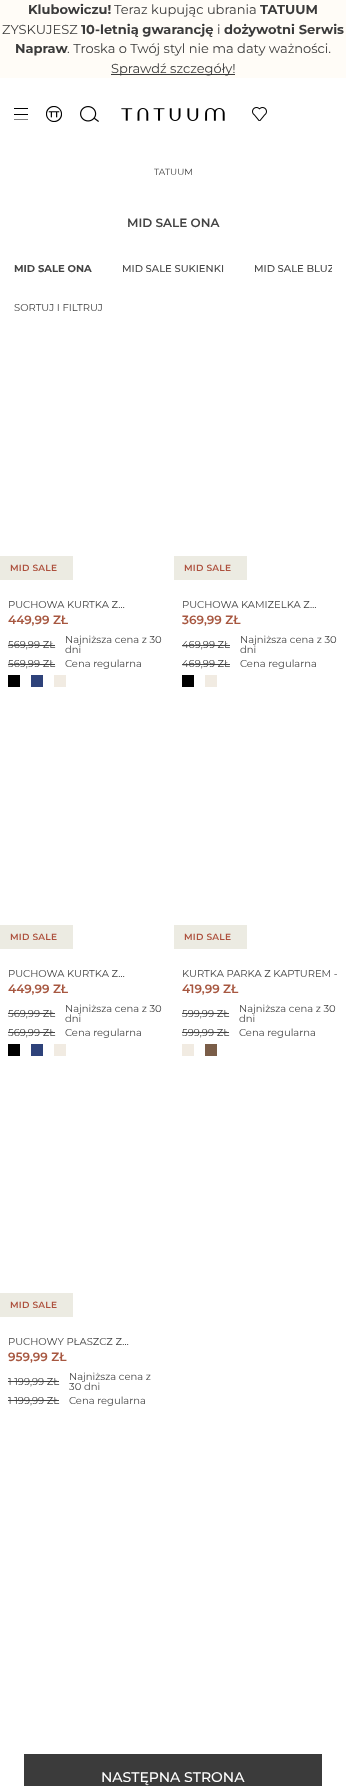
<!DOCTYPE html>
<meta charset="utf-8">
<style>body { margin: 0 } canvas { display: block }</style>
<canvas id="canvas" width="346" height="1786"></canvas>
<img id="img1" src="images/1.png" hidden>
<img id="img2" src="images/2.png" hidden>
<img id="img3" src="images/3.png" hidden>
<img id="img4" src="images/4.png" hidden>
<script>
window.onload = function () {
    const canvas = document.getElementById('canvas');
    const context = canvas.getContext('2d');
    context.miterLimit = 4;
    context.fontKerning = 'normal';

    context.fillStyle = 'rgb(255, 255, 255)';
    context.fillRect(0, 0, 346, 1786);
    context.fillStyle = 'rgb(255, 252, 247)';
    context.fillRect(0, 0, 346, 78);
    context.fillStyle = 'rgb(59, 59, 59)';
    context.fillRect(111, 74, 124, 1);
    context.fillStyle = 'rgb(0, 0, 0)';
    context.fillRect(14, 108, 14, 1);
    context.fillRect(14, 114, 14, 1);
    context.save();
    context.beginPath();
    context.rect(14, 108, 14, 12);
    context.clip();
    context.beginPath();
    context.moveTo(14, 120);
    context.lineTo(28, 120);
    context.strokeStyle = 'rgb(0, 0, 0)';
    context.stroke();
    context.restore();
    context.drawImage(document.getElementById('img1'), 46, 106, 16, 16);
    context.drawImage(document.getElementById('img2'), 80, 106, 19, 16);
    context.drawImage(document.getElementById('img3'), 121, 108, 104, 13);
    context.drawImage(document.getElementById('img4'), 252, 107, 15, 14);
    context.fillStyle = 'rgb(236, 235, 226)';
    context.fillRect(0, 556, 73, 24);
    context.fillStyle = 'rgb(68, 68, 68)';
    context.fillRect(8, 645, 47, 1);
    context.fillRect(8, 664, 47, 1);
    context.fillStyle = 'rgb(0, 0, 0)';
    context.fillRect(8, 675, 12, 12);
    context.fillStyle = 'rgb(46, 66, 122)';
    context.fillRect(31, 675, 12, 12);
    context.fillStyle = 'rgb(241, 235, 226)';
    context.fillRect(54, 675, 12, 12);
    context.fillStyle = 'rgb(236, 235, 226)';
    context.fillRect(174, 556, 73, 24);
    context.fillStyle = 'rgb(68, 68, 68)';
    context.fillRect(182, 645, 48, 1);
    context.fillRect(182, 664, 48, 1);
    context.fillStyle = 'rgb(0, 0, 0)';
    context.fillRect(182, 675, 12, 12);
    context.fillStyle = 'rgb(241, 235, 226)';
    context.fillRect(205, 675, 12, 12);
    context.fillStyle = 'rgb(236, 235, 226)';
    context.fillRect(0, 925, 73, 24);
    context.fillStyle = 'rgb(68, 68, 68)';
    context.fillRect(8, 1013, 47, 1);
    context.fillRect(8, 1032, 47, 1);
    context.fillStyle = 'rgb(0, 0, 0)';
    context.fillRect(8, 1044, 12, 12);
    context.fillStyle = 'rgb(46, 66, 122)';
    context.fillRect(31, 1044, 12, 12);
    context.fillStyle = 'rgb(241, 235, 226)';
    context.fillRect(54, 1044, 12, 12);
    context.fillStyle = 'rgb(236, 235, 226)';
    context.fillRect(174, 925, 73, 24);
    context.fillStyle = 'rgb(68, 68, 68)';
    context.fillRect(182, 1013, 47, 1);
    context.fillRect(182, 1032, 47, 1);
    context.fillStyle = 'rgb(241, 235, 226)';
    context.fillRect(182, 1044, 12, 12);
    context.fillStyle = 'rgb(122, 93, 72)';
    context.fillRect(205, 1044, 12, 12);
    context.fillStyle = 'rgb(236, 235, 226)';
    context.fillRect(0, 1293, 73, 24);
    context.fillStyle = 'rgb(68, 68, 68)';
    context.fillRect(8, 1381, 51, 1);
    context.fillRect(8, 1400, 51, 1);
    context.fillStyle = 'rgb(59, 59, 59)';
    context.fillRect(24, 1754, 298, 32);
    context.font = '100 13px "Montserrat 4"';
    context.fillText('Klubowiczu!', 28, 14);
    context.font = '100 13px Montserrat';
    context.fillText('Teraz kupując ubrania', 114, 14);
    context.font = '100 13px "Montserrat 4"';
    context.fillText('TATUUM', 260, 14);
    context.font = '100 13px Montserrat';
    context.fillText('ZYSKUJESZ', 2, 34);
    context.font = '100 13px "Montserrat 4"';
    context.fillText('10-letnią gwarancję', 81, 34);
    context.font = '100 13px Montserrat';
    context.fillText('i', 217, 34);
    context.font = '100 13px "Montserrat 4"';
    context.fillText('dożywotni Serwis', 224, 34);
    context.fillText('Napraw', 15, 53);
    context.font = '100 13px Montserrat';
    context.fillText('. Troska o Twój styl nie ma daty ważności.', 67, 53);
    context.fillText('Sprawdź szczegóły!', 111, 73);
    context.font = '100 9px Montserrat';
    context.fillText('TATUUM', 154, 175);
    context.font = '100 12px "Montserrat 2"';
    context.fillStyle = 'rgb(68, 68, 68)';
    context.fillText('MID SALE ONA', 127, 227);
    context.font = '100 10px "Montserrat 4"';
    context.fillText('MID SALE ONA', 14, 272);
    context.font = '100 10px "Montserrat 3"';
    context.fillText('MID SALE SUKIENKI', 122, 272);
    context.save();
    context.beginPath();
    context.rect(14, 255, 318, 24);
    context.clip();
    context.fillText('MID SALE BLUZ', 254, 272);
    context.restore();
    context.font = '100 10px Montserrat';
    context.fillText('SORTUJ I FILTRUJ', 14, 311);
    context.letterSpacing = '0.25px';
    context.font = '100 9px "Montserrat 2"';
    context.fillStyle = 'rgb(173, 80, 61)';
    context.fillText('MID SALE', 10, 571);
    context.letterSpacing = '0px';
    context.font = '100 10px Montserrat';
    context.fillStyle = 'rgb(68, 68, 68)';
    context.fillText('PUCHOWA KURTKA Z…', 8, 608);
    context.font = '100 12px "Montserrat 2"';
    context.fillStyle = 'rgb(167, 87, 64)';
    context.fillText('449,99 ZŁ', 8, 624);
    context.font = '100 10px Montserrat';
    context.fillStyle = 'rgb(68, 68, 68)';
    context.fillText('569,99 ZŁ', 8, 648);
    context.fillText('Najniższa cena z 30', 65, 643);
    context.fillText('dni', 65, 653);
    context.fillText('569,99 ZŁ', 8, 667);
    context.fillText('Cena regularna', 65, 667);
    context.letterSpacing = '0.25px';
    context.font = '100 9px "Montserrat 2"';
    context.fillStyle = 'rgb(173, 80, 61)';
    context.fillText('MID SALE', 184, 571);
    context.letterSpacing = '0px';
    context.font = '100 10px Montserrat';
    context.fillStyle = 'rgb(68, 68, 68)';
    context.fillText('PUCHOWA KAMIZELKA Z…', 182, 608);
    context.font = '100 12px "Montserrat 2"';
    context.fillStyle = 'rgb(167, 87, 64)';
    context.fillText('369,99 ZŁ', 182, 624);
    context.font = '100 10px Montserrat';
    context.fillStyle = 'rgb(68, 68, 68)';
    context.fillText('469,99 ZŁ', 182, 648);
    context.fillText('Najniższa cena z 30', 240, 643);
    context.fillText('dni', 240, 653);
    context.fillText('469,99 ZŁ', 182, 667);
    context.fillText('Cena regularna', 240, 667);
    context.letterSpacing = '0.25px';
    context.font = '100 9px "Montserrat 2"';
    context.fillStyle = 'rgb(173, 80, 61)';
    context.fillText('MID SALE', 10, 940);
    context.letterSpacing = '0px';
    context.font = '100 10px Montserrat';
    context.fillStyle = 'rgb(68, 68, 68)';
    context.fillText('PUCHOWA KURTKA Z…', 8, 977);
    context.font = '100 12px "Montserrat 2"';
    context.fillStyle = 'rgb(167, 87, 64)';
    context.fillText('449,99 ZŁ', 8, 993);
    context.font = '100 10px Montserrat';
    context.fillStyle = 'rgb(68, 68, 68)';
    context.fillText('569,99 ZŁ', 8, 1017);
    context.fillText('Najniższa cena z 30', 65, 1012);
    context.fillText('dni', 65, 1022);
    context.fillText('569,99 ZŁ', 8, 1036);
    context.fillText('Cena regularna', 65, 1036);
    context.letterSpacing = '0.25px';
    context.font = '100 9px "Montserrat 2"';
    context.fillStyle = 'rgb(173, 80, 61)';
    context.fillText('MID SALE', 184, 940);
    context.letterSpacing = '0px';
    context.font = '100 10px Montserrat';
    context.fillStyle = 'rgb(68, 68, 68)';
    context.fillText('KURTKA PARKA Z KAPTUREM -', 182, 977);
    context.font = '100 12px "Montserrat 2"';
    context.fillStyle = 'rgb(167, 87, 64)';
    context.fillText('419,99 ZŁ', 182, 993);
    context.font = '100 10px Montserrat';
    context.fillStyle = 'rgb(68, 68, 68)';
    context.fillText('599,99 ZŁ', 182, 1017);
    context.fillText('Najniższa cena z 30', 239, 1012);
    context.fillText('dni', 239, 1022);
    context.fillText('599,99 ZŁ', 182, 1036);
    context.fillText('Cena regularna', 239, 1036);
    context.letterSpacing = '0.25px';
    context.font = '100 9px "Montserrat 2"';
    context.fillStyle = 'rgb(173, 80, 61)';
    context.fillText('MID SALE', 10, 1308);
    context.letterSpacing = '0px';
    context.font = '100 10px Montserrat';
    context.fillStyle = 'rgb(68, 68, 68)';
    context.fillText('PUCHOWY PŁASZCZ Z…', 8, 1345);
    context.font = '100 12px "Montserrat 2"';
    context.fillStyle = 'rgb(167, 87, 64)';
    context.fillText('959,99 ZŁ', 8, 1361);
    context.font = '100 10px Montserrat';
    context.fillStyle = 'rgb(68, 68, 68)';
    context.fillText('1 199,99 ZŁ', 8, 1385);
    context.fillText('Najniższa cena z', 69, 1380);
    context.fillText('30 dni', 69, 1390);
    context.fillText('1 199,99 ZŁ', 8, 1404);
    context.fillText('Cena regularna', 69, 1404);
    context.font = '100 14px "Montserrat 3"';
    context.fillStyle = 'rgb(255, 255, 255)';
    context.fillText('NASTĘPNA STRONA', 101, 1782);
};
</script>
